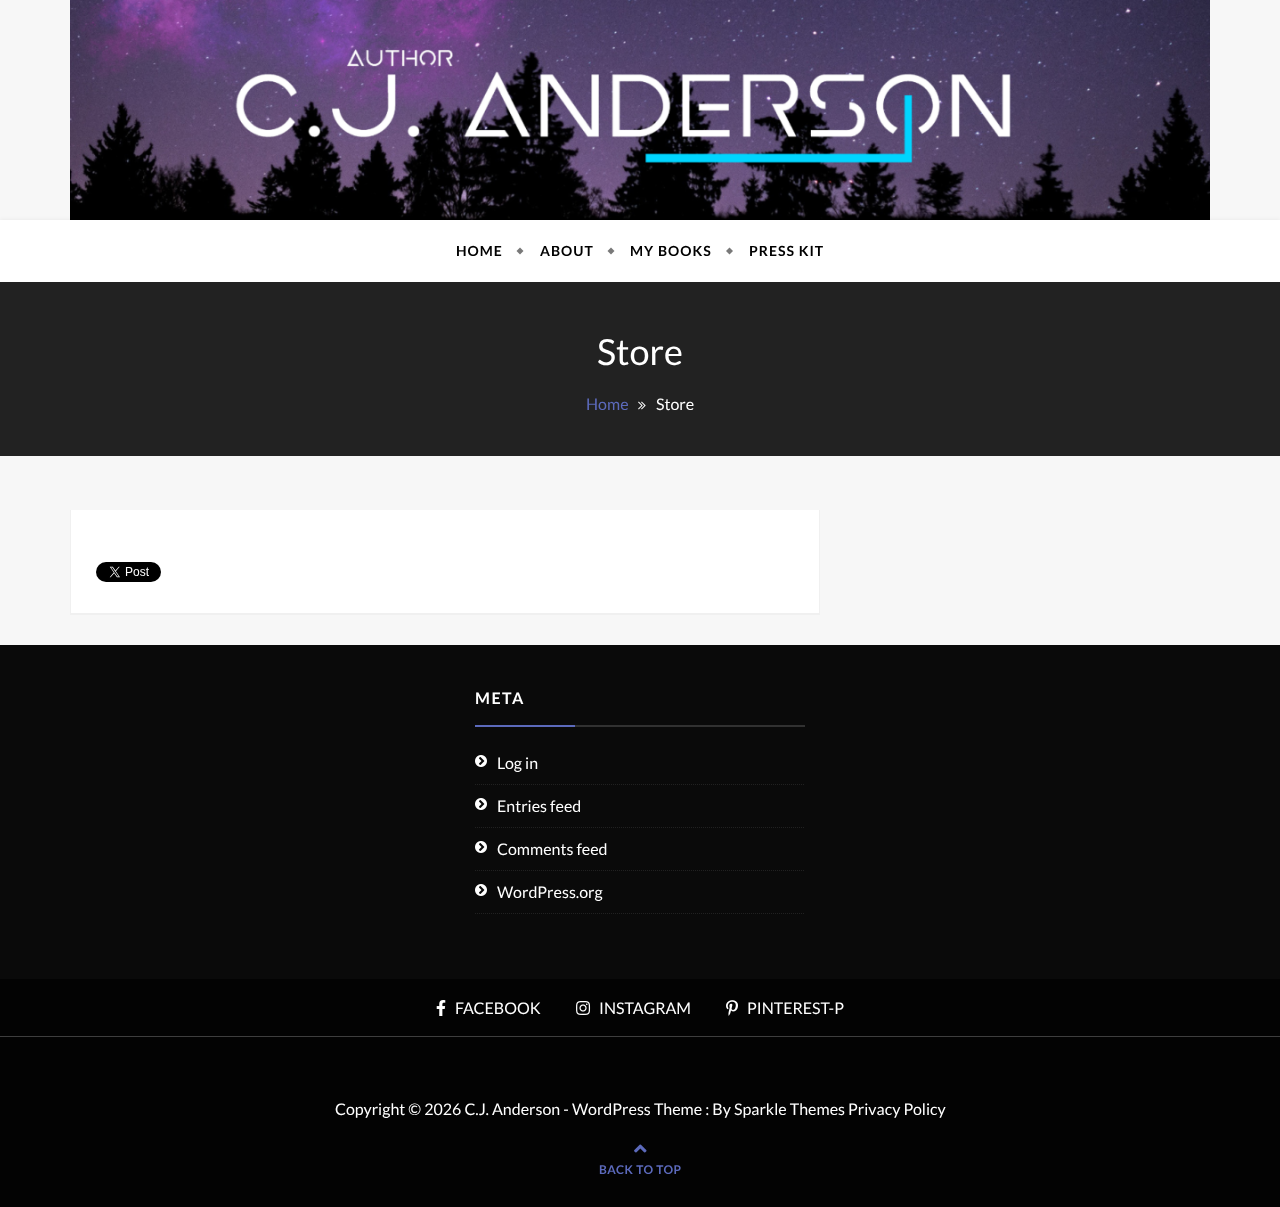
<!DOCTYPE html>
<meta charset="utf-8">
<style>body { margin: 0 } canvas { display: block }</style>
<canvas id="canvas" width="1280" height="1207"></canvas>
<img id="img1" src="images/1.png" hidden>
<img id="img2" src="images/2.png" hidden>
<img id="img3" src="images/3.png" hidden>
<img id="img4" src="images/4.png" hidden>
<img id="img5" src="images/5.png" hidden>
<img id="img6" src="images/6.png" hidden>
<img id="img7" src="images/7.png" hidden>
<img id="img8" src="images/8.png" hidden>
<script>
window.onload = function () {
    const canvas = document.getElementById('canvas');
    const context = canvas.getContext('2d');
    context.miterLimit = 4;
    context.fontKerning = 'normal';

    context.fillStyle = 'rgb(247, 247, 247)';
    context.fillRect(0, 0, 1280, 1207);
    context.drawImage(document.getElementById('img1'), 70, 0, 1140, 220);
    context.fillStyle = 'rgba(0, 0, 0, 0.1)';
    context.filter = 'blur(2.5px)';
    context.beginPath();
    context.rect(0, 221, 1280, 62);
    context.fill();
    context.filter = 'none';
    context.fillStyle = 'rgb(255, 255, 255)';
    context.fillRect(0, 220, 1280, 62);
    context.fillStyle = 'rgb(121, 121, 121)';
    context.beginPath();
    context.moveTo(516.5, 251);
    context.lineTo(520, 247.5);
    context.lineTo(523.5, 251);
    context.lineTo(520, 254.5);
    context.closePath();
    context.fill();
    context.beginPath();
    context.moveTo(607.5, 251);
    context.lineTo(611, 247.5);
    context.lineTo(614.5, 251);
    context.lineTo(611, 254.5);
    context.closePath();
    context.fill();
    context.beginPath();
    context.moveTo(726, 251);
    context.lineTo(729.5, 247.5);
    context.lineTo(733, 251);
    context.lineTo(729.5, 254.5);
    context.closePath();
    context.fill();
    context.fillStyle = 'rgb(34, 34, 34)';
    context.fillRect(0, 282, 1280, 174);
    context.drawImage(document.getElementById('img2'), 638, 401, 8, 9);
    context.fillStyle = 'rgb(240, 240, 240)';
    context.fillRect(70, 614, 750, 1);
    context.fillStyle = 'rgb(255, 255, 255)';
    context.fillRect(71, 510, 748, 103);
    context.fillStyle = 'rgb(240, 240, 240)';
    context.fillRect(819, 510, 1, 104);
    context.fillRect(70, 613, 750, 1);
    context.fillRect(70, 510, 1, 104);
    context.drawImage(document.getElementById('img3'), 96, 562, 65, 20);
    context.fillStyle = 'rgb(10, 10, 10)';
    context.fillRect(0, 645, 1280, 334);
    context.fillStyle = 'rgb(49, 49, 49)';
    context.fillRect(575, 725, 230, 2);
    context.fillStyle = 'rgb(92, 106, 188)';
    context.fillRect(475, 725, 100, 2);
    context.beginPath();
    context.moveTo(475, 784.5);
    context.lineTo(805, 784.5);
    context.strokeStyle = 'rgb(33, 33, 33)';
    context.setLineDash([1, 1]);
    context.stroke();
    context.drawImage(document.getElementById('img4'), 475, 755, 12, 12);
    context.beginPath();
    context.moveTo(475, 827.5);
    context.lineTo(805, 827.5);
    context.stroke();
    context.drawImage(document.getElementById('img4'), 475, 798, 12, 12);
    context.beginPath();
    context.moveTo(475, 870.5);
    context.lineTo(805, 870.5);
    context.stroke();
    context.drawImage(document.getElementById('img4'), 475, 841, 12, 12);
    context.beginPath();
    context.moveTo(475, 913.5);
    context.lineTo(805, 913.5);
    context.stroke();
    context.drawImage(document.getElementById('img4'), 475, 884, 12, 12);
    context.fillStyle = 'rgb(3, 3, 3)';
    context.fillRect(0, 979, 1280, 57);
    context.fillStyle = 'rgb(62, 62, 62)';
    context.fillRect(0, 1036, 1280, 1);
    context.drawImage(document.getElementById('img5'), 436, 1000, 10, 16);
    context.drawImage(document.getElementById('img6'), 576, 1001, 15, 14);
    context.drawImage(document.getElementById('img7'), 726, 1000, 12, 16);
    context.fillStyle = 'rgb(3, 3, 3)';
    context.fillRect(0, 1037, 1280, 170);
    context.drawImage(document.getElementById('img8'), 634, 1144, 13, 9);
    context.letterSpacing = '1px';
    context.font = 'bold 14px Lato';
    context.fillStyle = 'rgb(0, 0, 0)';
    context.fillText('HOME', 456, 256);
    context.fillText('ABOUT', 540, 256);
    context.fillText('MY BOOKS', 630, 256);
    context.fillText('PRESS KIT', 749, 256);
    context.letterSpacing = '0px';
    context.font = '36px Lato';
    context.fillStyle = 'rgb(255, 255, 255)';
    context.fillText('Store', 597, 365);
    context.font = '16px Lato';
    context.fillStyle = 'rgb(92, 106, 188)';
    context.fillText('Home', 586, 410);
    context.fillStyle = 'rgb(255, 255, 255)';
    context.fillText('Store', 656, 410);
    context.letterSpacing = '1.5px';
    context.font = 'bold 16px Lato';
    context.fillText('META', 475, 704);
    context.letterSpacing = '0px';
    context.font = '16px Lato';
    context.fillText('Log in', 497, 769);
    context.fillText('Entries feed', 497, 812);
    context.fillText('Comments feed', 497, 855);
    context.fillText('WordPress.org', 497, 898);
    context.fillText('FACEBOOK', 455, 1014);
    context.fillText('INSTAGRAM', 599, 1014);
    context.fillText('PINTEREST-P', 747, 1014);
    context.fillText('Copyright © 2026 C.J. Anderson - WordPress Theme : By Sparkle Themes Privacy Policy', 335, 1115);
    context.letterSpacing = '0.5px';
    context.font = 'bold 12px Lato';
    context.fillStyle = 'rgb(92, 106, 188)';
    context.fillText('BACK TO TOP', 599, 1174);
};
</script>
